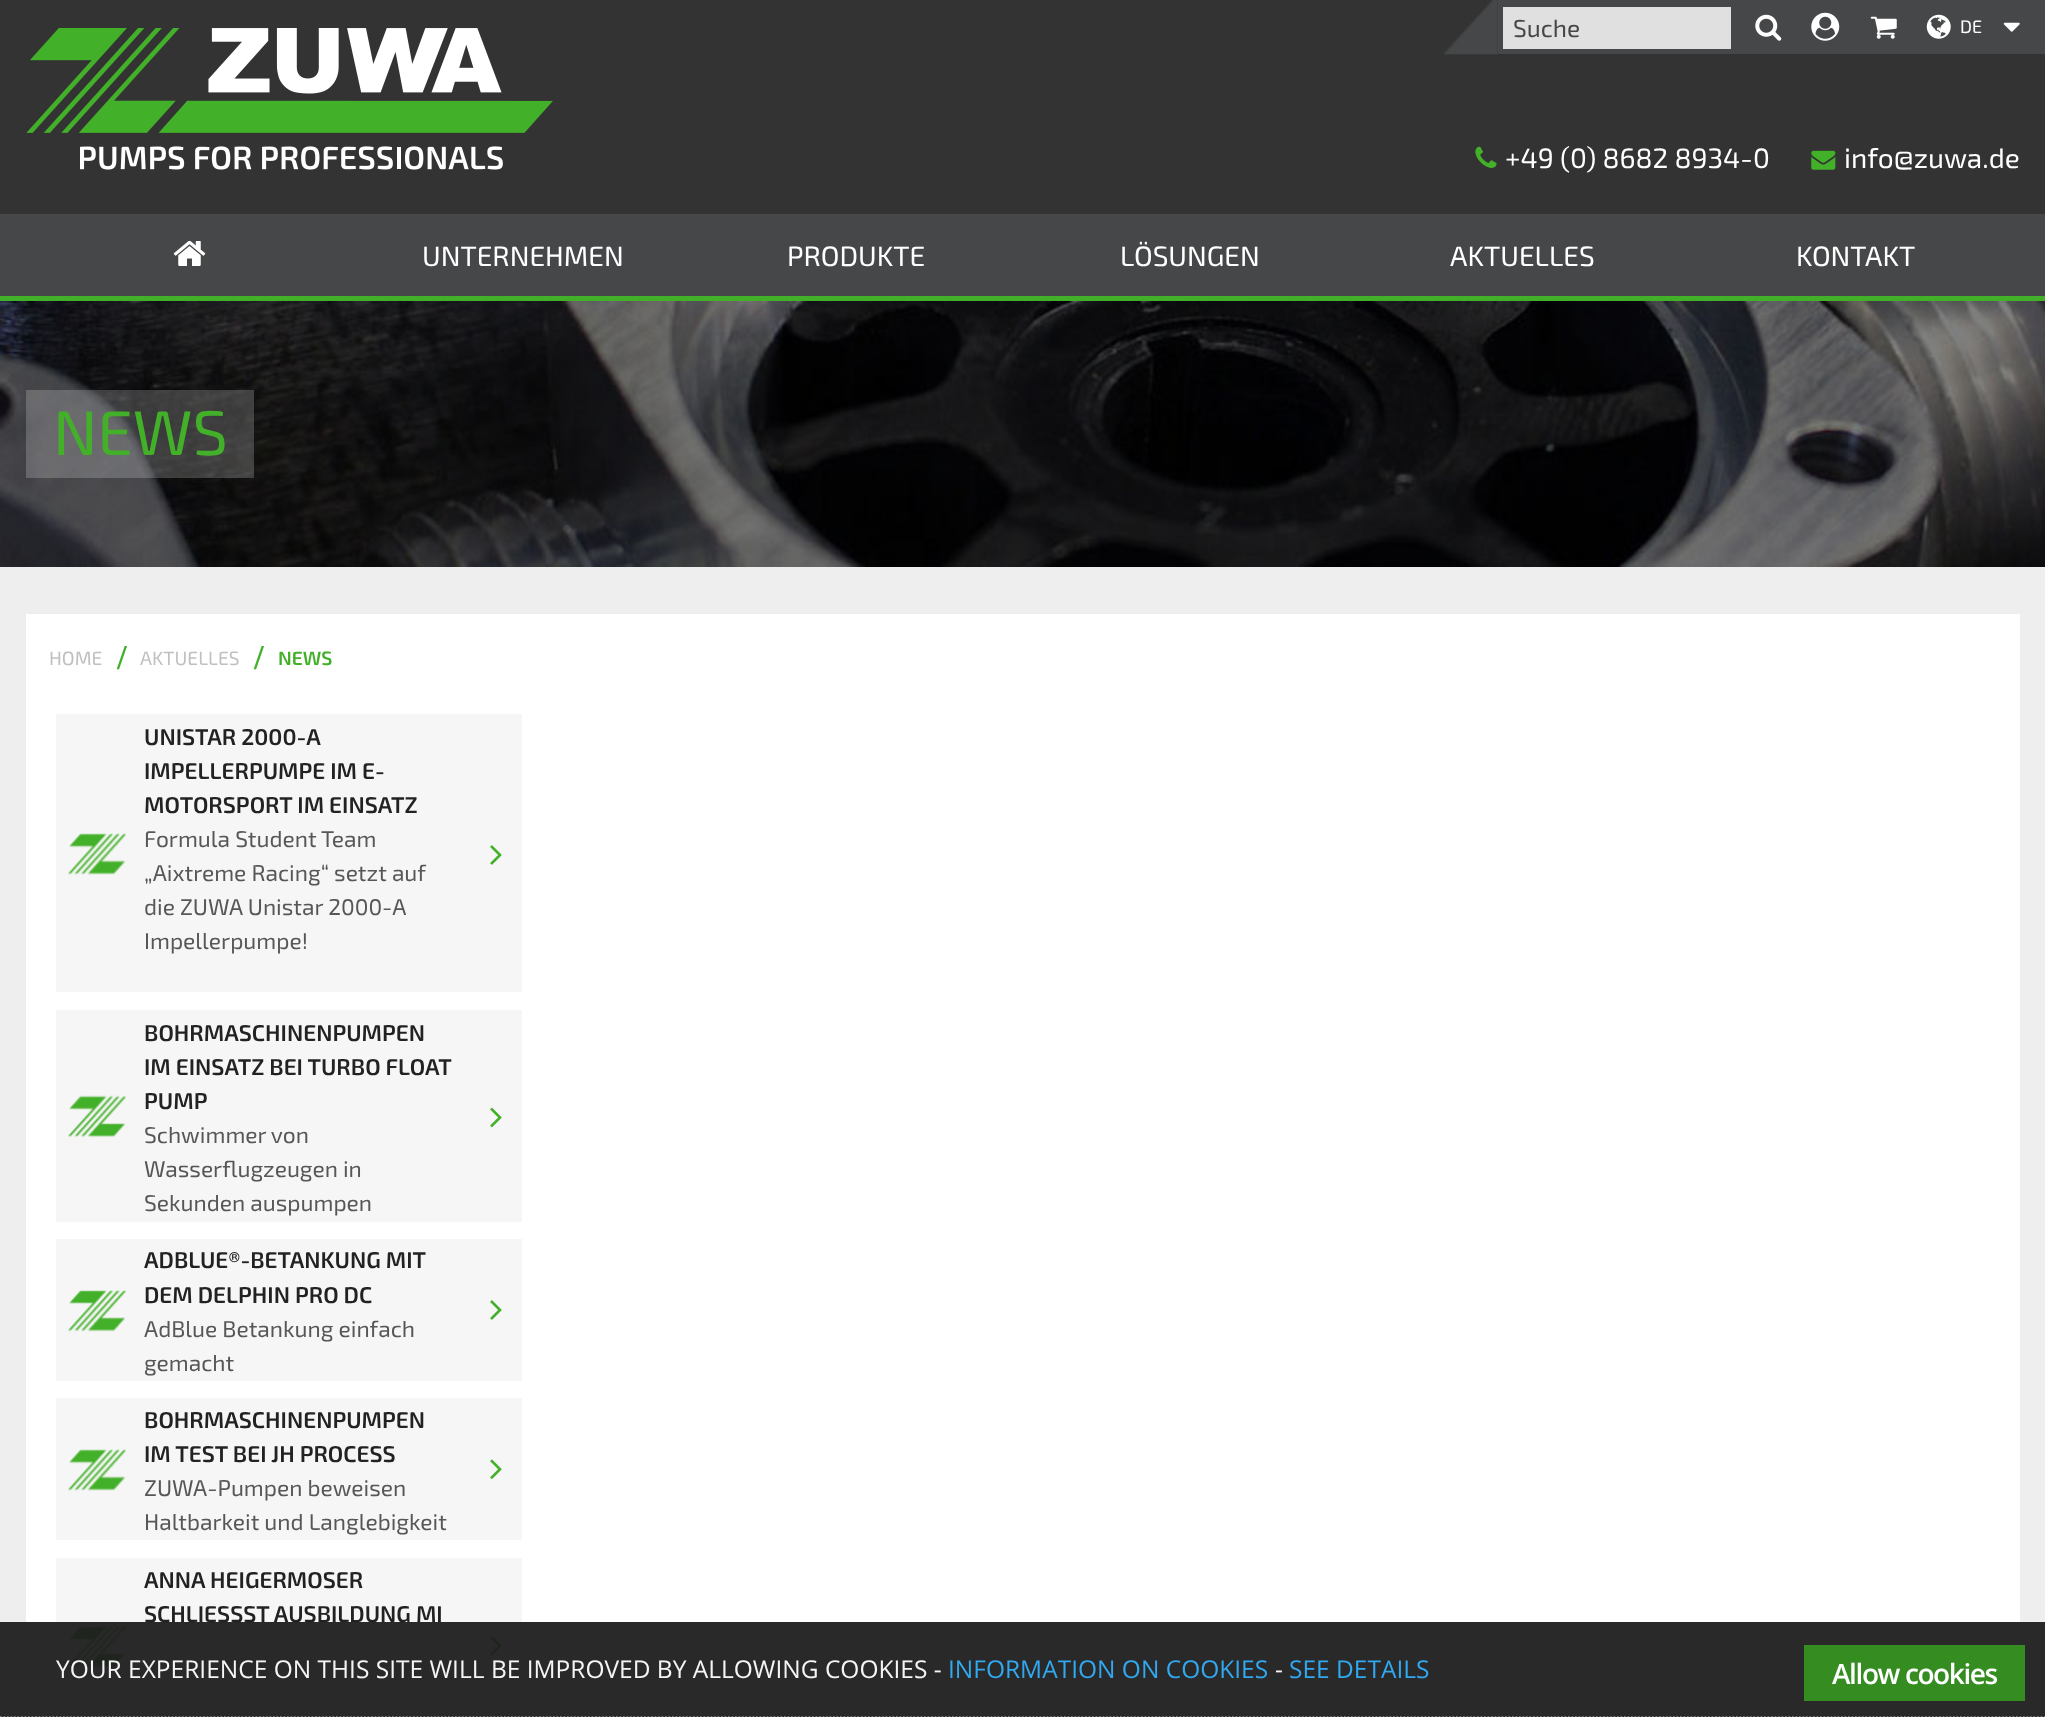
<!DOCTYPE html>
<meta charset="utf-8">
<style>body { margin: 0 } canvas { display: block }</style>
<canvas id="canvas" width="2045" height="1717"></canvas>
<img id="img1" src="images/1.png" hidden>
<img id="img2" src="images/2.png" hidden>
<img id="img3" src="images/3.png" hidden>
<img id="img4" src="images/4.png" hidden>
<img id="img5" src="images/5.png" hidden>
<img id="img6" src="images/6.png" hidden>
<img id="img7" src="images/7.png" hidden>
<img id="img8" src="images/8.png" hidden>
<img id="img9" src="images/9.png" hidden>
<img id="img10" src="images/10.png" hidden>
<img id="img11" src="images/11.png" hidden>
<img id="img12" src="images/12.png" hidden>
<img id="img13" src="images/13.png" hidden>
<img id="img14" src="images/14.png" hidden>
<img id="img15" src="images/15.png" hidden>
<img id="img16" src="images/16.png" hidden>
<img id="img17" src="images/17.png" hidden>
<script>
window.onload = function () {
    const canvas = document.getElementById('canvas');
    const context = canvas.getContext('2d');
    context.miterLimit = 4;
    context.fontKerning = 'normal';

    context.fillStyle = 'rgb(238, 238, 238)';
    context.fillRect(0, 0, 2045, 1717);
    context.fillStyle = 'rgb(51, 51, 51)';
    context.fillRect(0, 0, 2045, 214);
    context.drawImage(document.getElementById('img1'), 26, 28, 527, 142);
    context.fillStyle = 'rgb(70, 71, 73)';
    context.fillRect(1498, 0, 547, 54);
    context.drawImage(document.getElementById('img2'), 1444, 0, 54, 55);
    context.fillStyle = 'rgb(224, 224, 224)';
    context.fillRect(1503, 7, 228, 42);
    context.drawImage(document.getElementById('img3'), 1755, 14, 27, 27);
    context.drawImage(document.getElementById('img4'), 1811, 12, 29, 29);
    context.drawImage(document.getElementById('img5'), 1870, 16, 27, 23);
    context.drawImage(document.getElementById('img6'), 1926, 14, 25, 25);
    context.drawImage(document.getElementById('img7'), 2003, 22, 17, 10);
    context.drawImage(document.getElementById('img8'), 1475, 146, 22, 22);
    context.drawImage(document.getElementById('img9'), 1811, 150, 25, 20);
    context.fillStyle = 'rgb(70, 71, 73)';
    context.fillRect(0, 214, 2045, 82);
    context.fillStyle = 'rgb(67, 176, 42)';
    context.fillRect(0, 296, 2045, 5);
    context.drawImage(document.getElementById('img10'), 173, 240, 33, 26);
    context.drawImage(document.getElementById('img11'), 0, 301, 2045, 266);
    context.fillStyle = 'rgba(255, 255, 255, 0.2)';
    context.fillRect(26, 390, 228, 88);
    context.fillStyle = 'rgb(255, 255, 255)';
    context.fillRect(26, 614, 1994, 1103);
    context.fillStyle = 'rgb(246, 246, 246)';
    context.fillRect(56, 714, 466, 278);
    context.drawImage(document.getElementById('img12'), 68, 833, 58, 42);
    context.drawImage(document.getElementById('img13'), 490, 845, 12, 20);
    context.fillRect(56, 1010, 466, 212);
    context.drawImage(document.getElementById('img14'), 68, 1095, 58, 43);
    context.drawImage(document.getElementById('img15'), 490, 1107, 12, 21);
    context.fillRect(56, 1239, 466, 142);
    context.drawImage(document.getElementById('img16'), 68, 1290, 58, 42);
    context.drawImage(document.getElementById('img13'), 490, 1300, 12, 20);
    context.fillRect(56, 1398, 466, 142);
    context.drawImage(document.getElementById('img12'), 68, 1449, 58, 42);
    context.drawImage(document.getElementById('img17'), 490, 1459, 12, 20);
    context.fillRect(56, 1558, 466, 159);
    context.drawImage(document.getElementById('img16'), 68, 1626, 58, 42);
    context.drawImage(document.getElementById('img13'), 490, 1636, 12, 20);
    context.font = '24.5px "Exo 2"';
    context.fillStyle = 'rgb(70, 71, 73)';
    context.fillText('Suche', 1513, 37);
    context.font = '18px "Exo 2"';
    context.fillStyle = 'rgb(255, 255, 255)';
    context.fillText('DE', 1960, 33);
    context.font = '28px "Exo 2"';
    context.fillText('+49 (0) 8682 8934-0', 1505, 168);
    context.fillText('info@zuwa.de', 1844, 168);
    context.fillText('UNTERNEHMEN', 422, 266);
    context.fillText('PRODUKTE', 787, 266);
    context.fillText('LÖSUNGEN', 1120, 266);
    context.fillText('AKTUELLES', 1450, 266);
    context.fillText('KONTAKT', 1796, 266);
    context.font = '63px "Exo 2"';
    context.fillStyle = 'rgb(67, 176, 42)';
    context.fillText('NEWS', 53, 455);
    context.font = '19.25px "Exo 2"';
    context.fillStyle = 'rgb(192, 192, 192)';
    context.fillText('HOME', 49, 665);
    context.font = 'bold 35px Liberation Serif';
    context.fillStyle = 'rgb(67, 176, 42)';
    context.fillText('/', 117, 669);
    context.font = '19.25px "Exo 2"';
    context.fillStyle = 'rgb(192, 192, 192)';
    context.fillText('AKTUELLES', 140, 665);
    context.font = 'bold 35px Liberation Serif';
    context.fillStyle = 'rgb(67, 176, 42)';
    context.fillText('/', 254, 669);
    context.font = '600 19.25px "Exo 2"';
    context.fillText('NEWS', 278, 665);
    context.font = '600 22.75px "Exo 2"';
    context.fillStyle = 'rgb(34, 34, 34)';
    context.fillText('UNISTAR 2000-A', 144, 745);
    context.fillText('IMPELLERPUMPE IM E-', 144, 779);
    context.fillText('MOTORSPORT IM EINSATZ', 144, 813);
    context.font = '22.75px "Exo 2"';
    context.fillStyle = 'rgb(87, 87, 87)';
    context.fillText('Formula Student Team', 144, 847);
    context.fillText('„Aixtreme Racing“ setzt auf', 144, 881);
    context.fillText('die ZUWA Unistar 2000-A', 144, 915);
    context.fillText('Impellerpumpe!', 144, 949);
    context.font = '600 22.75px "Exo 2"';
    context.fillStyle = 'rgb(34, 34, 34)';
    context.fillText('BOHRMASCHINENPUMPEN', 144, 1041);
    context.fillText('IM EINSATZ BEI TURBO FLOAT', 144, 1075);
    context.fillText('PUMP', 144, 1109);
    context.font = '22.75px "Exo 2"';
    context.fillStyle = 'rgb(87, 87, 87)';
    context.fillText('Schwimmer von', 144, 1143);
    context.fillText('Wasserflugzeugen in', 144, 1177);
    context.fillText('Sekunden auspumpen', 144, 1211);
    context.font = '600 22.75px "Exo 2"';
    context.fillStyle = 'rgb(34, 34, 34)';
    context.fillText('ADBLUE®-BETANKUNG MIT', 144, 1268);
    context.fillText('DEM DELPHIN PRO DC', 144, 1303);
    context.font = '22.75px "Exo 2"';
    context.fillStyle = 'rgb(87, 87, 87)';
    context.fillText('AdBlue Betankung einfach', 144, 1337);
    context.fillText('gemacht', 144, 1371);
    context.font = '600 22.75px "Exo 2"';
    context.fillStyle = 'rgb(34, 34, 34)';
    context.fillText('BOHRMASCHINENPUMPEN', 144, 1428);
    context.fillText('IM TEST BEI JH PROCESS', 144, 1462);
    context.font = '22.75px "Exo 2"';
    context.fillStyle = 'rgb(87, 87, 87)';
    context.fillText('ZUWA-Pumpen beweisen', 144, 1496);
    context.fillText('Haltbarkeit und Langlebigkeit', 144, 1530);
    context.font = '600 22.75px "Exo 2"';
    context.fillStyle = 'rgb(34, 34, 34)';
    context.fillText('ANNA HEIGERMOSER', 144, 1588);
    context.fillText('SCHLIESSST AUSBILDUNG MI', 144, 1622);
    context.fillStyle = 'rgba(29, 29, 29, 0.95)';
    context.fillRect(0, 1622, 2045, 95);
    context.beginPath();
    context.moveTo(0, 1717.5);
    context.lineTo(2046, 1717.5);
    context.strokeStyle = 'rgb(204, 204, 204)';
    context.lineWidth = 1.8;
    context.setLineDash([1.75, 1.75]);
    context.stroke();
    context.font = '24.5px Open Sans';
    context.fillStyle = 'rgb(245, 245, 245)';
    context.fillText('YOUR EXPERIENCE ON THIS SITE WILL BE IMPROVED BY ALLOWING COOKIES -', 56, 1678);
    context.fillStyle = 'rgb(49, 168, 240)';
    context.fillText('INFORMATION ON COOKIES', 948, 1678);
    context.fillStyle = 'rgb(245, 245, 245)';
    context.fillText('-', 1275, 1678);
    context.fillStyle = 'rgb(49, 168, 240)';
    context.fillText('SEE DETAILS', 1289, 1678);
    context.fillStyle = 'rgb(53, 140, 33)';
    context.fillRect(1804, 1645, 221, 56);
    context.letterSpacing = '-1.4px';
    context.font = '600 28px Open Sans';
    context.fillStyle = 'rgb(255, 255, 255)';
    context.fillText('Allow cookies', 1832, 1684);
};
</script>
